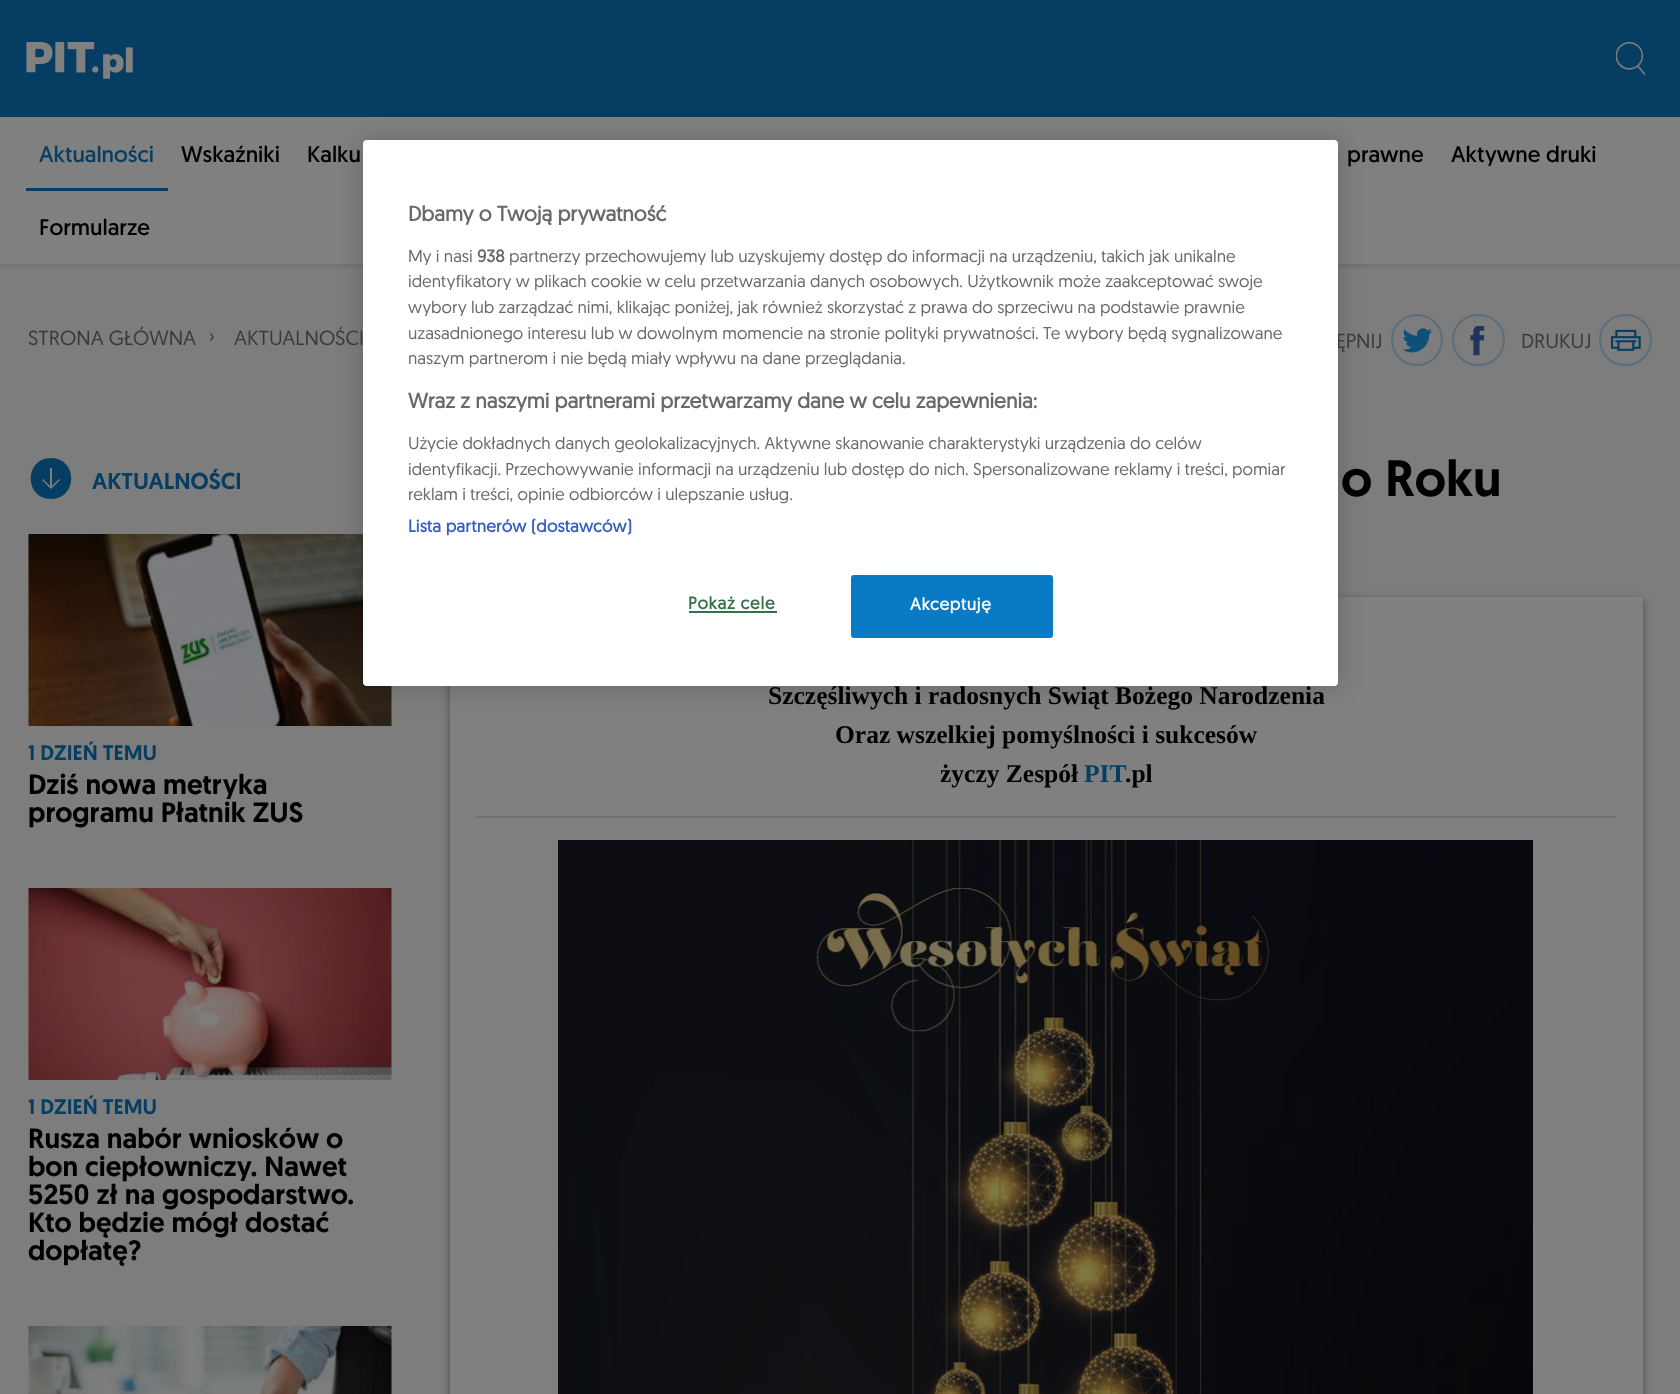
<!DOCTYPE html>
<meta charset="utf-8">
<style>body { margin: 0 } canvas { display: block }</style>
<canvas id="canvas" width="1680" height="1394"></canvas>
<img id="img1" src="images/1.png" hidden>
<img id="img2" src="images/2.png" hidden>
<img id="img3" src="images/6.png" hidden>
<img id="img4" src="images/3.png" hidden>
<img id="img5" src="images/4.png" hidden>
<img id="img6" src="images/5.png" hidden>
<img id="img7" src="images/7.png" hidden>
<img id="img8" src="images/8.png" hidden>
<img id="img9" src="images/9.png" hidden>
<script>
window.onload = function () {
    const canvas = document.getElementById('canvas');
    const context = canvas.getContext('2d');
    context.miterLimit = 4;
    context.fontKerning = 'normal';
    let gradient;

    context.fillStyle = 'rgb(125, 125, 125)';
    context.fillRect(0, 0, 1680, 1394);
    context.fillStyle = 'rgb(5, 62, 98)';
    context.fillRect(0, 0, 1680, 117);
    context.drawImage(document.getElementById('img1'), 26, 42, 107, 37);
    context.drawImage(document.getElementById('img2'), 1616, 42, 30, 33);
    context.fillStyle = 'rgb(128, 128, 128)';
    context.fillRect(0, 117, 1680, 147);
    context.fillStyle = 'rgb(5, 62, 98)';
    context.fillRect(26, 188, 142, 3);
    gradient = context.createLinearGradient(840, 262, 840, 285);
    gradient.addColorStop(0, 'rgb(115, 115, 115)');
    gradient.addColorStop(0.4, 'rgb(125, 125, 125)');
    context.fillStyle = gradient;
    context.fillRect(0, 266, 1680, 3);
    context.fillStyle = 'rgb(115, 115, 115)';
    context.fillRect(0, 264, 1680, 2);
    context.drawImage(document.getElementById('img3'), 28, 534, 364, 192);
    context.fillStyle = 'rgba(0, 0, 0, 0.4)';
    context.filter = 'blur(4px)';
    context.beginPath();
    context.rect(450, 600, 1193, 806);
    context.fill();
    context.filter = 'none';
    context.fillStyle = 'rgb(128, 128, 128)';
    context.fillRect(476, 612, 1141, 782);
    context.fillRect(1338, 597, 279, 15);
    context.fillRect(450, 686, 26, 708);
    context.fillStyle = 'rgba(0, 0, 0, 0.2)';
    context.filter = 'blur(13.5px)';
    context.beginPath();
    context.roundRect(363, 140, 975, 546, 4);
    context.fill();
    context.filter = 'none';
    context.drawImage(document.getElementById('img4'), 1403, 328, 29, 25);
    context.beginPath();
    context.arc(1417, 340, 25, 0, 2 * Math.PI);
    context.strokeStyle = 'rgb(90, 110, 122)';
    context.lineWidth = 2;
    context.stroke();
    context.drawImage(document.getElementById('img5'), 1470, 326, 15, 30);
    context.beginPath();
    context.roundRect(1453, 315, 51, 50, 25);
    context.stroke();
    context.drawImage(document.getElementById('img6'), 1611, 329, 30, 22);
    context.beginPath();
    context.roundRect(1600, 315, 51, 50, 25);
    context.stroke();
    context.fillStyle = 'rgb(5, 62, 98)';
    context.beginPath();
    context.moveTo(51, 458);
    context.bezierCurveTo(24, 458, 24, 499, 51, 499);
    context.bezierCurveTo(78, 499, 78, 458, 51, 458);
    context.closePath();
    context.moveTo(51, 489);
    context.lineTo(42, 480);
    context.lineTo(43, 479);
    context.lineTo(50, 486);
    context.lineTo(50, 468);
    context.lineTo(52, 468);
    context.lineTo(52, 486);
    context.lineTo(59, 479);
    context.lineTo(60, 480);
    context.closePath();
    context.fill();
    context.drawImage(document.getElementById('img7'), 28, 888, 364, 192);
    context.drawImage(document.getElementById('img8'), 28, 1326, 364, 68);
    context.fillStyle = 'rgb(128, 128, 128)';
    context.fillRect(1617, 597, 26, 797);
    context.fillStyle = 'rgb(110, 114, 117)';
    context.fillRect(476, 816, 1141, 2);
    context.drawImage(document.getElementById('img9'), 558, 840, 975, 554);
    context.font = '22.5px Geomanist';
    context.fillStyle = 'rgb(5, 62, 98)';
    context.fillText('Aktualności', 39, 162);
    context.fillStyle = 'rgb(0, 0, 0)';
    context.fillText('Wskaźniki', 181, 162);
    context.fillText('Kalku', 307, 162);
    context.fillText('prawne', 1347, 162);
    context.fillText('Aktywne druki', 1451, 162);
    context.fillText('Formularze', 39, 235);
    context.font = '20.5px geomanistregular';
    context.fillStyle = 'rgb(58, 58, 58)';
    context.fillText('STRONA GŁÓWNA', 28, 345);
    context.fillText('›', 209, 343);
    context.fillText('AKTUALNOŚCI', 234, 345);
    context.fillText('ĘPNIJ', 1336, 348);
    context.fillText('DRUKUJ', 1521, 348);
    context.font = '500 23px Geomanist';
    context.fillStyle = 'rgb(5, 62, 98)';
    context.fillText('AKTUALNOŚCI', 92, 489);
    context.font = '500 21px Geomanist';
    context.fillText('1 DZIEŃ TEMU', 28, 760);
    context.font = '500 28px Geomanist';
    context.fillStyle = 'rgb(0, 0, 0)';
    context.fillText('Dziś nowa metryka', 28, 794);
    context.fillText('programu Płatnik ZUS', 28, 822);
    context.font = '500 21px Geomanist';
    context.fillStyle = 'rgb(5, 62, 98)';
    context.fillText('1 DZIEŃ TEMU', 28, 1114);
    context.font = '500 28px Geomanist';
    context.fillStyle = 'rgb(0, 0, 0)';
    context.fillText('Rusza nabór wniosków o', 28, 1148);
    context.fillText('bon ciepłowniczy. Nawet', 28, 1176);
    context.fillText('5250 zł na gospodarstwo.', 28, 1204);
    context.fillText('Kto będzie mógł dostać', 28, 1232);
    context.fillText('dopłatę?', 28, 1260);
    context.font = '500 51px Geomanist';
    context.fillText('o Roku', 1341, 496);
    context.font = 'bold 25.5px Liberation Serif';
    context.fillText('Szczęśliwych i radosnych Świąt Bożego Narodzenia', 768, 704);
    context.fillStyle = 'rgb(255, 255, 255)';
    context.beginPath();
    context.roundRect(363, 140, 975, 546, 4);
    context.fill();
    context.letterSpacing = '0.75px';
    context.font = 'bold 17.07px geomanistregular';
    context.fillStyle = 'rgb(52, 110, 74)';
    context.fillText('Pokaż cele', 688, 609);
    context.fillRect(689, 611, 88, 2);
    context.fillStyle = 'rgb(9, 123, 196)';
    context.beginPath();
    context.roundRect(852, 576, 200, 61, 2);
    context.fill();
    context.strokeStyle = 'rgb(9, 123, 196)';
    context.stroke();
    context.fillStyle = 'rgb(255, 255, 255)';
    context.fillText('Akceptuję', 910, 610);
    context.letterSpacing = '0.2px';
    context.fillStyle = 'rgb(56, 96, 190)';
    context.fillText('Lista partnerów (dostawców)', 408, 532);
    context.letterSpacing = '0px';
    context.font = '17.07px geomanistregular';
    context.fillStyle = 'rgb(105, 105, 105)';
    context.fillText('reklam i treści, opinie odbiorców i ulepszanie usług.', 408, 500);
    context.fillText('identyfikacji. Przechowywanie informacji na urządzeniu lub dostęp do nich. Spersonalizowane reklamy i treści, pomiar', 408, 475);
    context.fillText('Użycie dokładnych danych geolokalizacyjnych. Aktywne skanowanie charakterystyki urządzenia do celów', 408, 449);
    context.font = 'bold 21px geomanistregular';
    context.fillText('Wraz z naszymi partnerami przetwarzamy dane w celu zapewnienia:', 408, 408);
    context.font = '17.07px geomanistregular';
    context.fillText('naszym partnerom i nie będą miały wpływu na dane przeglądania.', 408, 364);
    context.fillText('uzasadnionego interesu lub w dowolnym momencie na stronie polityki prywatności. Te wybory będą sygnalizowane', 408, 339);
    context.fillText('wybory lub zarządzać nimi, klikając poniżej, jak również skorzystać z prawa do sprzeciwu na podstawie prawnie', 408, 313);
    context.fillText('identyfikatory w plikach cookie w celu przetwarzania danych osobowych. Użytkownik może zaakceptować swoje', 408, 287);
    context.fillText('partnerzy przechowujemy lub uzyskujemy dostęp do informacji na urządzeniu, takich jak unikalne', 509, 262);
    context.font = 'bold 17.07px geomanistregular';
    context.fillText('938', 477, 262);
    context.font = '17.07px geomanistregular';
    context.fillText('My i nasi', 408, 262);
    context.font = 'bold 21px geomanistregular';
    context.fillText('Dbamy o Twoją prywatność', 408, 221);
    context.font = 'bold 25.5px Liberation Serif';
    context.fillStyle = 'rgb(0, 0, 0)';
    context.fillText('Oraz wszelkiej pomyślności i sukcesów', 835, 743);
    context.fillText('życzy Zespół', 940, 782);
    context.fillStyle = 'rgb(5, 62, 98)';
    context.fillText('PIT', 1084, 782);
    context.fillStyle = 'rgb(0, 0, 0)';
    context.fillText('.pl', 1125, 782);
};
</script>
